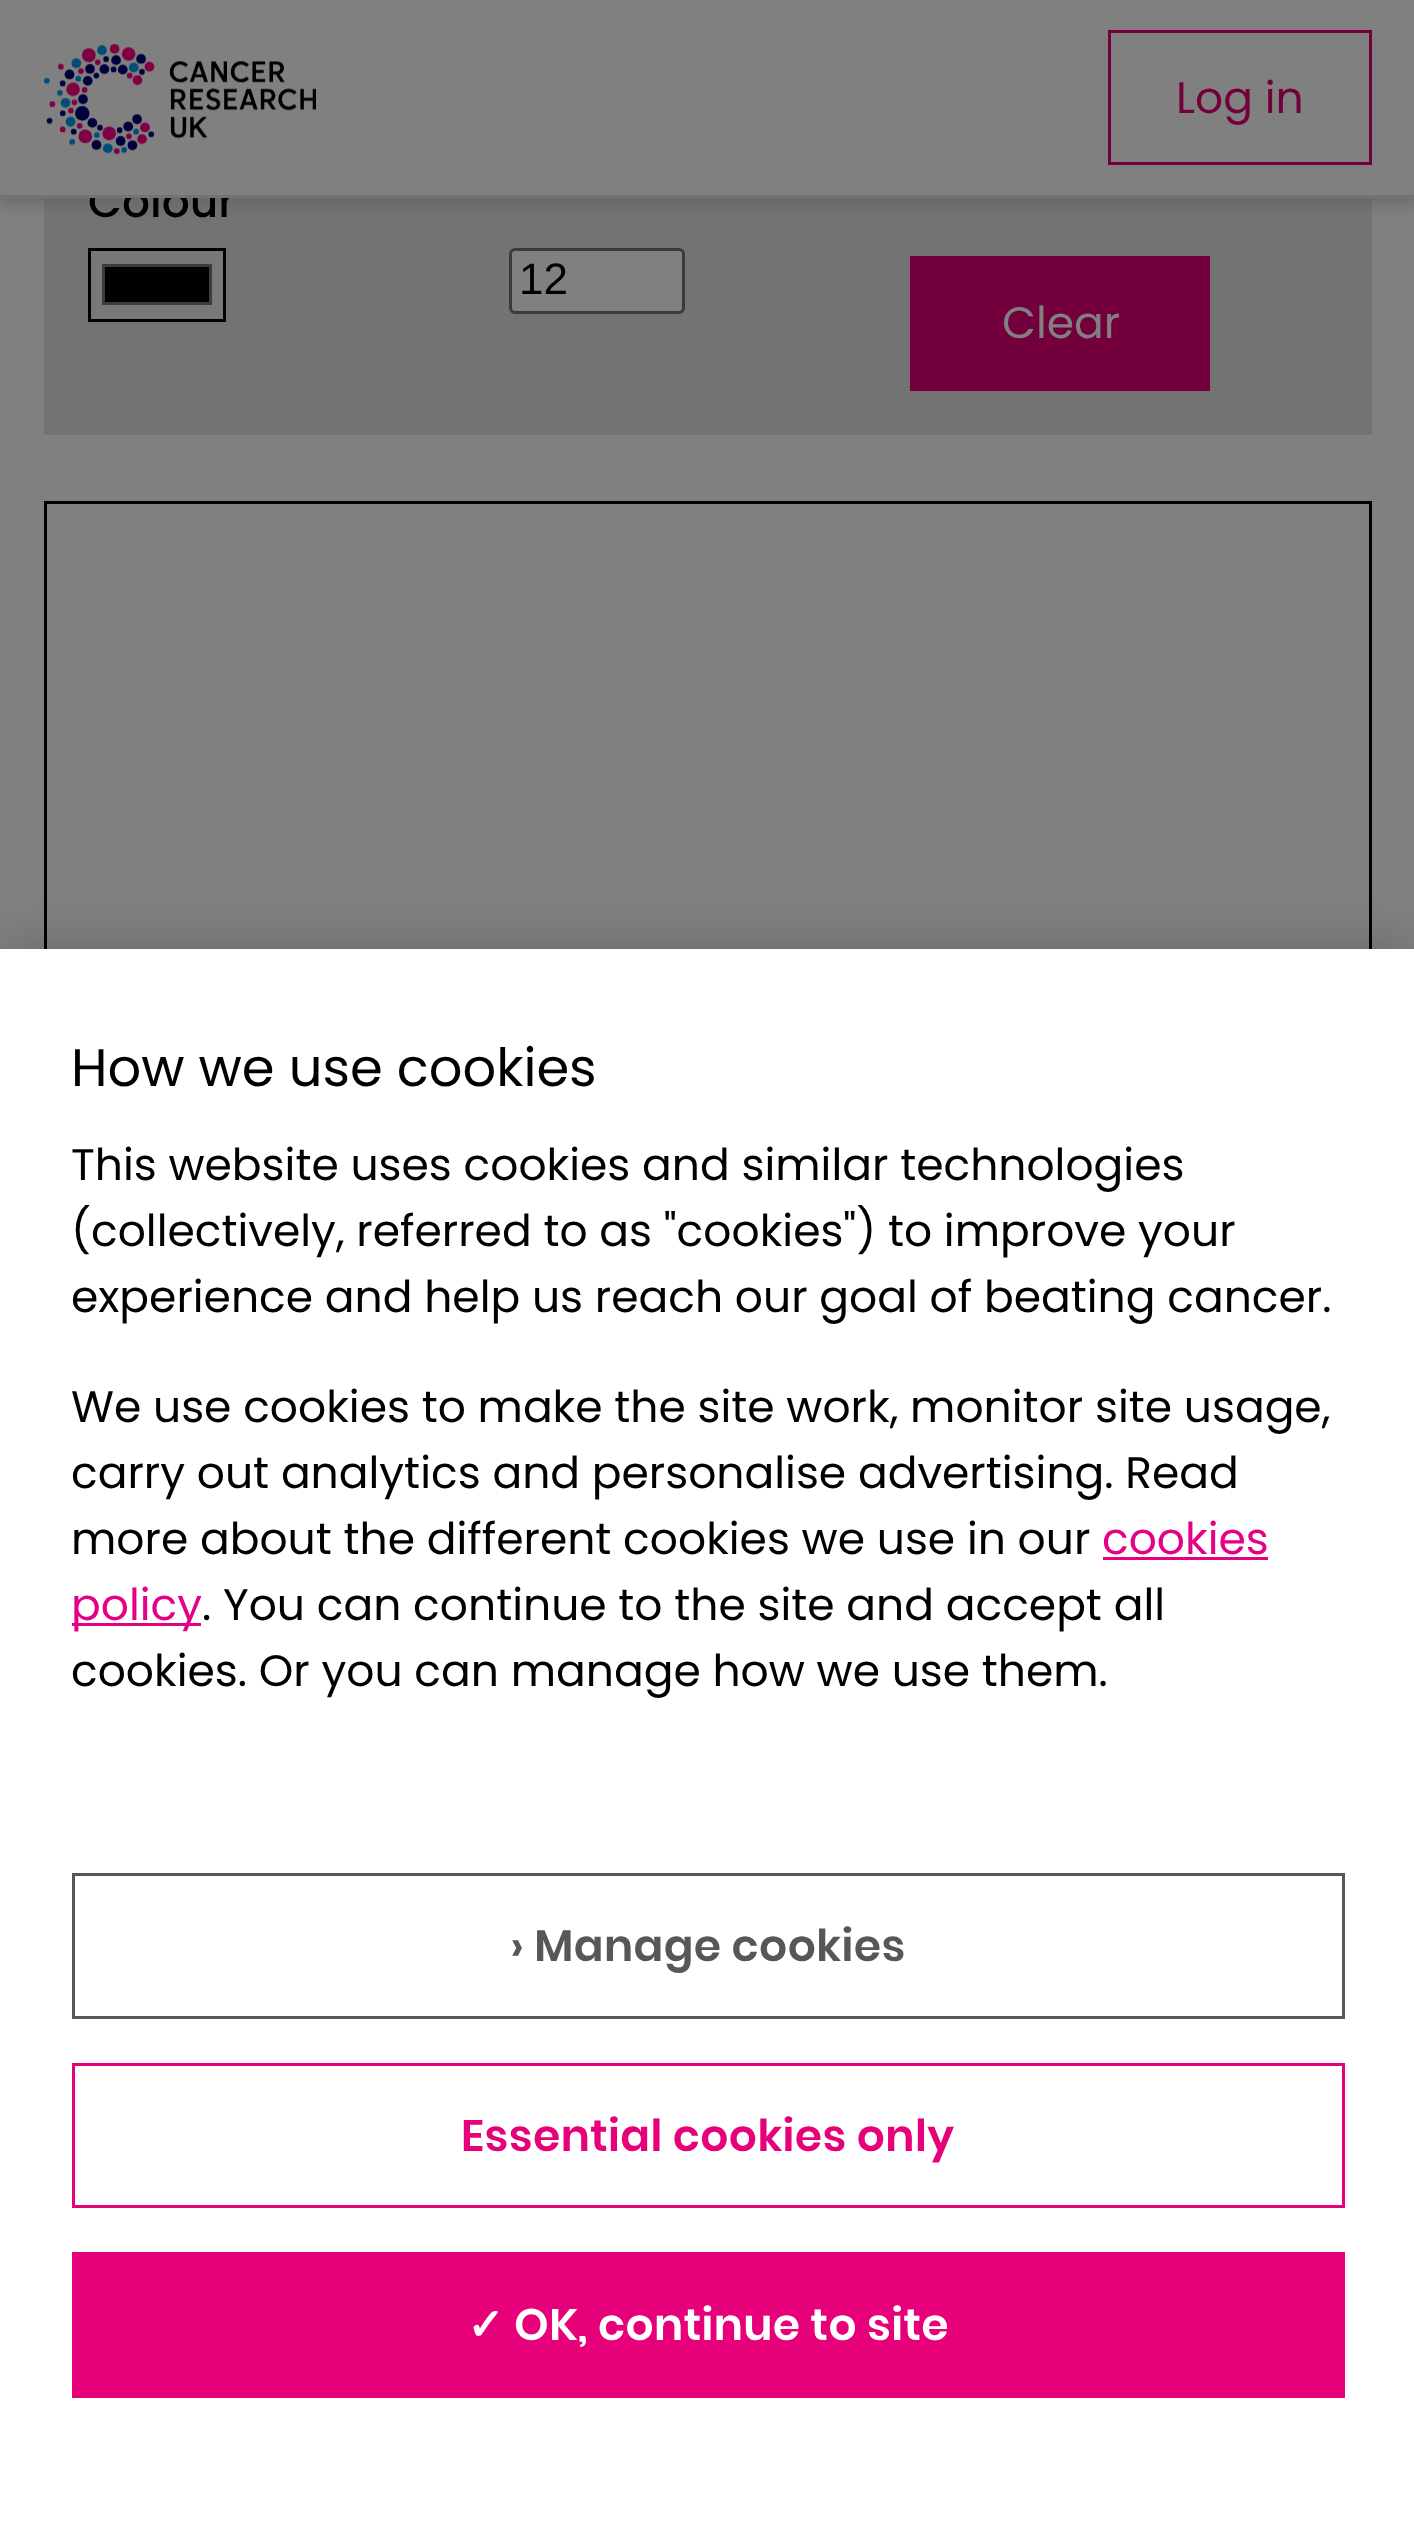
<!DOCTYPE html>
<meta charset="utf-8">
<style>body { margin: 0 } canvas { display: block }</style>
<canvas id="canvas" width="1414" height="2530"></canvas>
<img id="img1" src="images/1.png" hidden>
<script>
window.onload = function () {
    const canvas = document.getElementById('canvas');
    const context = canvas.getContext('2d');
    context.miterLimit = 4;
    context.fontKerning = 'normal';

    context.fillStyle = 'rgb(128, 128, 128)';
    context.fillRect(0, 0, 1414, 2530);
    context.fillStyle = 'rgb(115, 115, 115)';
    context.fillRect(44, 198, 1328, 237);
    context.fillStyle = 'rgb(99, 99, 99)';
    context.filter = 'blur(9.5px)';
    context.beginPath();
    context.rect(-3, -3, 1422, 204);
    context.fill();
    context.filter = 'none';
    context.fillStyle = 'rgb(120, 120, 120)';
    context.beginPath();
    context.rect(89.5, 249.5, 135, 71);
    context.fill();
    context.strokeStyle = 'rgb(0, 0, 0)';
    context.lineWidth = 3;
    context.stroke();
    context.fillStyle = 'rgb(0, 0, 0)';
    context.beginPath();
    context.rect(103.5, 265.5, 107, 38);
    context.fill();
    context.strokeStyle = 'rgb(60, 60, 60)';
    context.stroke();
    context.fillStyle = 'rgb(128, 128, 128)';
    context.beginPath();
    context.roundRect(510.5, 249.5, 173, 63, 4.5);
    context.fill();
    context.strokeStyle = 'rgb(59, 59, 59)';
    context.stroke();
    context.fillStyle = 'rgb(115, 0, 61)';
    context.fillRect(910, 256, 300, 135);
    context.strokeStyle = 'rgb(0, 0, 0)';
    context.strokeRect(45.5, 502.5, 1325, 1262);
    context.fillStyle = 'rgba(0, 0, 0, 0.2)';
    context.filter = 'blur(25px)';
    context.beginPath();
    context.rect(0, 949, 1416, 1581);
    context.fill();
    context.filter = 'none';
    context.fillStyle = 'rgb(255, 255, 255)';
    context.fillRect(0, 949, 1414, 1581);
    context.fillStyle = 'rgb(228, 0, 135)';
    context.fillRect(1103, 1557, 165, 3);
    context.fillRect(72, 1623, 129, 3);
    context.strokeStyle = 'rgb(87, 87, 87)';
    context.strokeRect(73.5, 1874.5, 1270, 143);
    context.strokeStyle = 'rgb(230, 0, 121)';
    context.strokeRect(73.5, 2064.5, 1270, 142);
    context.fillStyle = 'rgb(230, 0, 121)';
    context.fillRect(72, 2252, 1273, 146);
    context.font = '500 44px Poppins';
    context.fillStyle = 'rgb(0, 0, 0)';
    context.fillText('Colour', 88, 217);
    context.fillStyle = 'rgb(128, 128, 128)';
    context.fillRect(0, 0, 1414, 195);
    context.strokeStyle = 'rgb(115, 0, 61)';
    context.strokeRect(1109.5, 31.5, 261, 132);
    context.font = '44px Poppins';
    context.fillStyle = 'rgb(115, 0, 61)';
    context.fillText('Log in', 1176, 113);
    context.drawImage(document.getElementById('img1'), 44, 44, 272, 111);
    context.fillStyle = 'rgb(115, 115, 115)';
    context.fillRect(0, 195, 1414, 3);
    context.font = '44px Liberation Sans';
    context.fillStyle = 'rgb(0, 0, 0)';
    context.fillText('12', 519, 294);
    context.font = '44px Poppins';
    context.fillStyle = 'rgb(128, 128, 128)';
    context.fillText('Clear', 1002, 338);
    context.font = '52.75px Poppins';
    context.fillStyle = 'rgb(0, 0, 0)';
    context.fillText('How we use cookies', 71, 1086);
    context.font = '44px Poppins';
    context.fillText('This website uses cookies and similar technologies', 71, 1180);
    context.fillText('(collectively, referred to as "cookies") to improve your', 71, 1246);
    context.fillText('experience and help us reach our goal of beating cancer.', 71, 1312);
    context.fillText('We use cookies to make the site work, monitor site usage,', 71, 1422);
    context.fillText('carry out analytics and personalise advertising. Read', 71, 1488);
    context.fillText('more about the different cookies we use in our', 71, 1554);
    context.fillStyle = 'rgb(228, 0, 135)';
    context.fillText('cookies', 1102, 1554);
    context.fillText('policy', 71, 1620);
    context.fillStyle = 'rgb(0, 0, 0)';
    context.fillText('. You can continue to the site and accept all', 202, 1620);
    context.fillText('cookies. Or you can manage how we use them.', 71, 1686);
    context.letterSpacing = '0.4px';
    context.font = '600 44px Poppins';
    context.fillStyle = 'rgb(87, 87, 87)';
    context.fillText('› Manage cookies', 510, 1961);
    context.fillStyle = 'rgb(230, 0, 121)';
    context.fillText('Essential cookies only', 461, 2151);
    context.font = 'bold 44px DejaVu Sans';
    context.fillStyle = 'rgb(255, 255, 255)';
    context.fillText('✓', 467, 2340);
    context.font = '600 44px Poppins';
    context.fillText('OK, continue to site', 514, 2340);
};
</script>
